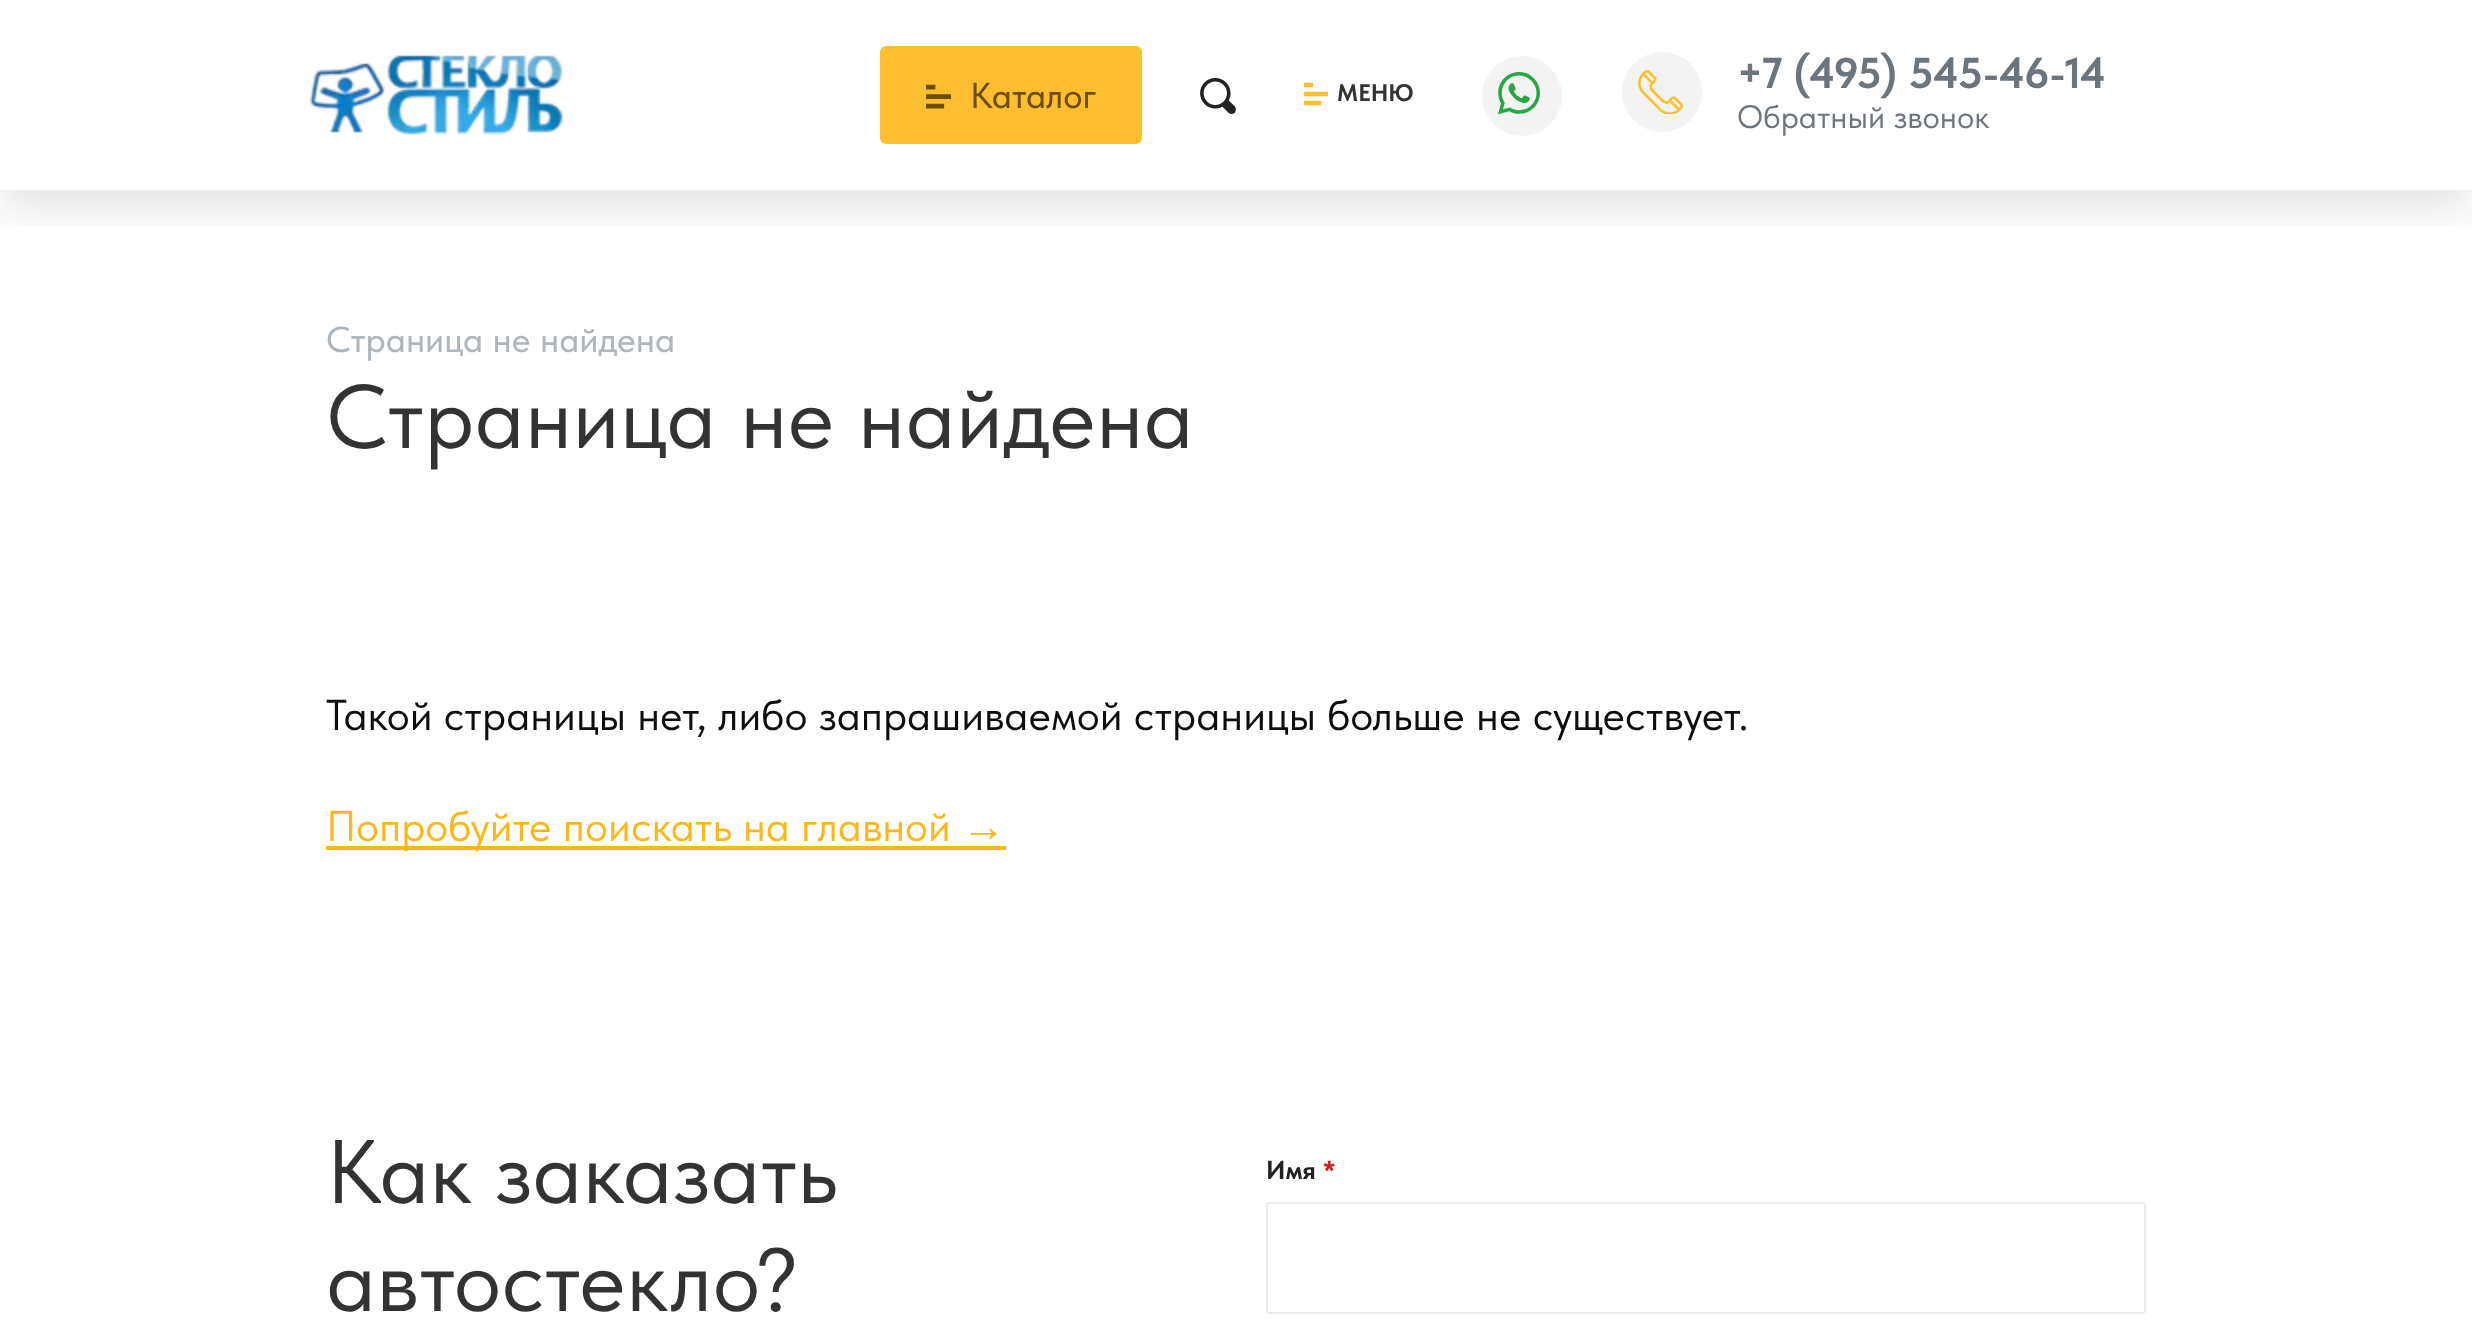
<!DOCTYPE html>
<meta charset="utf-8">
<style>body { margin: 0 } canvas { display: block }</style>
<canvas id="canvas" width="2472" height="1332"></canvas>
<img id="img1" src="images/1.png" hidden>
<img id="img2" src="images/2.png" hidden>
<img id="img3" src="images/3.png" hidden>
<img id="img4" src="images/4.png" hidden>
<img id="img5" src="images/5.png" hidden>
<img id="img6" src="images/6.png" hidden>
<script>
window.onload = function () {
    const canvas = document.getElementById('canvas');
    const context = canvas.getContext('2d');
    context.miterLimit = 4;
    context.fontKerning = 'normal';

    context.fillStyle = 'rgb(255, 255, 255)';
    context.fillRect(0, 0, 2472, 1332);
    context.save();
    context.beginPath();
    context.rect(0, 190, 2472, 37);
    context.clip();
    context.fillStyle = 'rgba(0, 0, 0, 0.1)';
    context.filter = 'blur(20px)';
    context.beginPath();
    context.rect(0, 20, 2472, 190);
    context.fill();
    context.filter = 'none';
    context.restore();
    context.drawImage(document.getElementById('img1'), 309, 55, 254, 80);
    context.fillStyle = 'rgb(253, 191, 47)';
    context.beginPath();
    context.roundRect(880, 46, 262, 98, 6);
    context.fill();
    context.drawImage(document.getElementById('img2'), 926, 84, 26, 25);
    context.drawImage(document.getElementById('img3'), 1200, 78, 36, 36);
    context.drawImage(document.getElementById('img4'), 1304, 82, 24, 24);
    context.fillStyle = 'rgb(243, 243, 243)';
    context.beginPath();
    context.arc(1522, 96, 40, 0, 2 * Math.PI);
    context.fill();
    context.drawImage(document.getElementById('img5'), 1498, 72, 42, 43);
    context.beginPath();
    context.arc(1662, 92, 40, 0, 2 * Math.PI);
    context.fill();
    context.drawImage(document.getElementById('img6'), 1638, 70, 45, 44);
    context.fillStyle = 'rgb(253, 183, 22)';
    context.fillRect(326, 846, 680, 4);
    context.beginPath();
    context.roundRect(1267, 1203, 878, 110, 3);
    context.strokeStyle = 'rgb(236, 236, 236)';
    context.lineWidth = 2;
    context.stroke();
    context.font = '36px "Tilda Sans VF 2"';
    context.fillStyle = 'rgb(110, 77, 1)';
    context.fillText('Каталог', 970, 108);
    context.font = 'bold 24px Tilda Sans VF';
    context.fillStyle = 'rgb(51, 51, 51)';
    context.fillText('МЕНЮ', 1337, 101);
    context.font = 'bold 43.2px Tilda Sans VF';
    context.fillStyle = 'rgb(108, 117, 125)';
    context.fillText('+7 (495) 545-46-14', 1737, 88);
    context.font = '32.5px Tilda Sans VF';
    context.fillText('Обратный звонок', 1737, 128);
    context.font = '36px "Tilda Sans VF 2"';
    context.fillStyle = 'rgb(173, 181, 189)';
    context.fillText('Страница не найдена', 326, 352);
    context.font = '90px Tilda Sans VF';
    context.fillStyle = 'rgb(51, 51, 51)';
    context.fillText('Страница не найдена', 326, 448);
    context.font = '43.2px Tilda Sans VF';
    context.fillStyle = 'rgb(13, 13, 13)';
    context.fillText('Такой страницы нет, либо запрашиваемой страницы больше не существует.', 326, 730);
    context.fillStyle = 'rgb(253, 183, 22)';
    context.fillText('Попробуйте поискать на главной', 326, 841);
    context.font = '43.2px Liberation Serif';
    context.fillText('→', 962, 841);
    context.font = '90px Tilda Sans VF';
    context.fillStyle = 'rgb(51, 51, 51)';
    context.fillText('Как заказать', 326, 1203);
    context.fillText('автостекло?', 326, 1311);
    context.font = 'bold 26px Tilda Sans VF';
    context.fillStyle = 'rgb(34, 34, 34)';
    context.fillText('Имя', 1266, 1179);
    context.fillStyle = 'rgb(201, 31, 31)';
    context.fillText('*', 1323, 1179);
};
</script>
